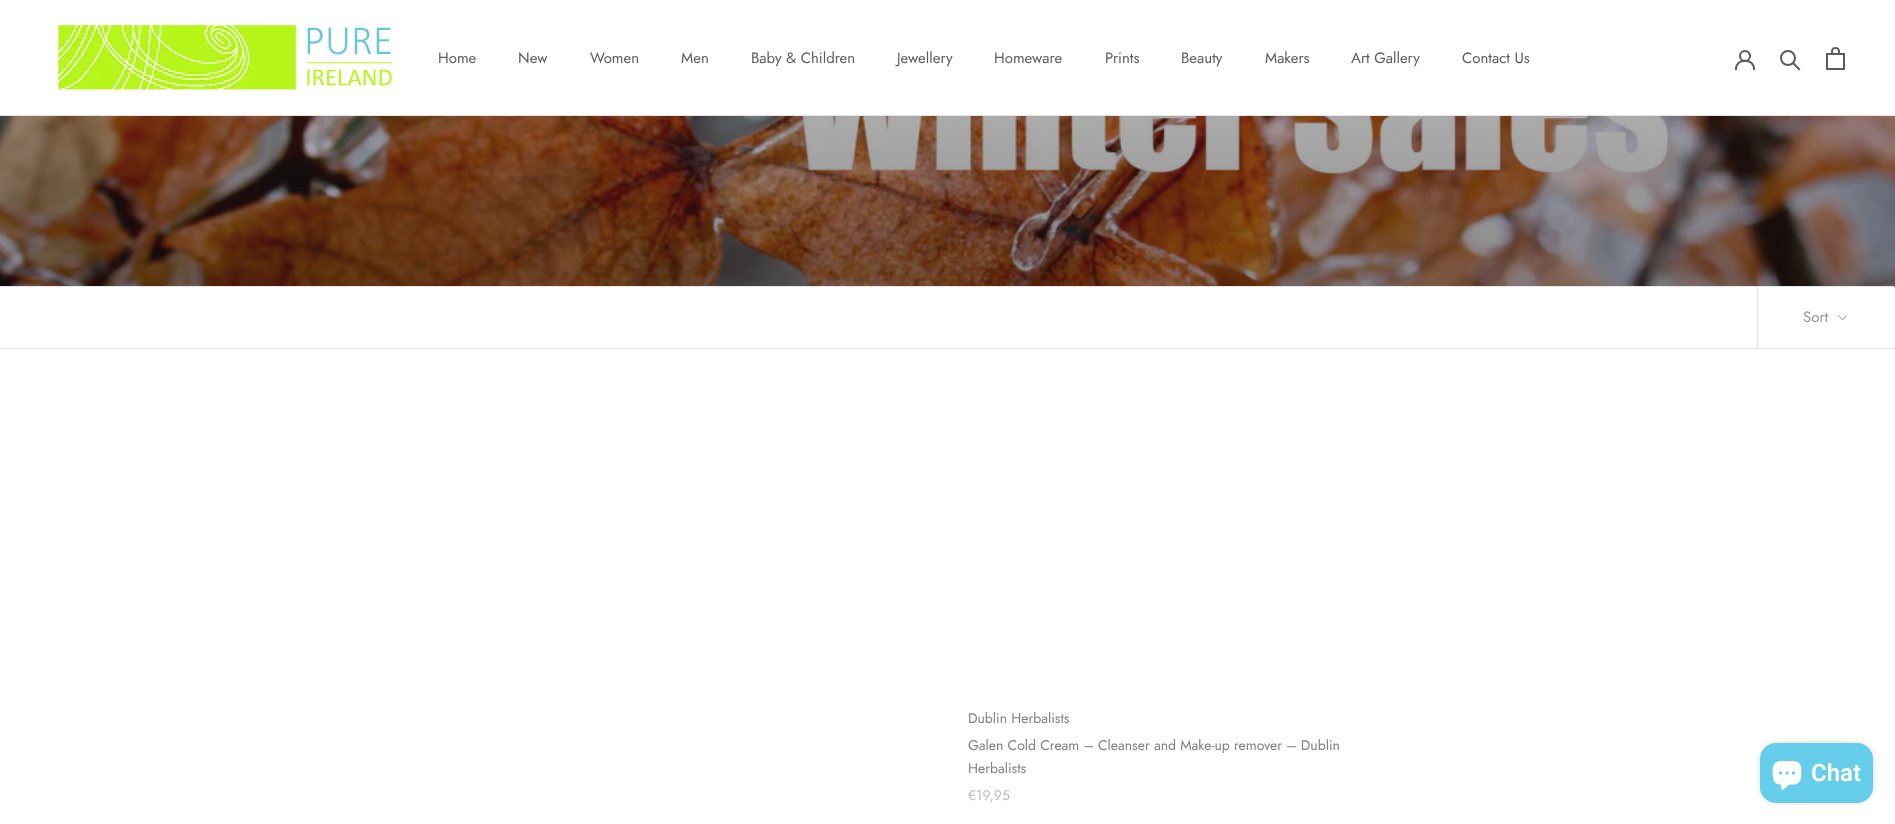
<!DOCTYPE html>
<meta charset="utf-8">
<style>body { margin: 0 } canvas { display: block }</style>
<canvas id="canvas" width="1895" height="824"></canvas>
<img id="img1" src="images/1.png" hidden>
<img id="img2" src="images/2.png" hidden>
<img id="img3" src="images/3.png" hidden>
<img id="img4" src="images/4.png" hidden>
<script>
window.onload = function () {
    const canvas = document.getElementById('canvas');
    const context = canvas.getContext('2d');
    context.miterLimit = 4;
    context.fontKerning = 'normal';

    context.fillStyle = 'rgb(255, 255, 255)';
    context.fillRect(0, 0, 1895, 824);
    context.fillStyle = 'rgb(231, 231, 231)';
    context.fillRect(0, 115, 1895, 1);
    context.drawImage(document.getElementById('img1'), 57, 25, 336, 66);
    context.beginPath();
    context.moveTo(1736, 69);
    context.bezierCurveTo(1736, 58, 1754, 58, 1754, 69);
    context.strokeStyle = 'rgb(92, 92, 92)';
    context.lineWidth = 2;
    context.lineCap = 'square';
    context.stroke();
    context.beginPath();
    context.arc(1745, 56, 5, 0, 2 * Math.PI);
    context.stroke();
    context.beginPath();
    context.moveTo(1799, 69);
    context.lineTo(1793.5, 63.5);
    context.stroke();
    context.beginPath();
    context.arc(1788, 58, 7, 0, 2 * Math.PI);
    context.stroke();
    context.drawImage(document.getElementById('img2'), 1826, 47, 19, 23);
    context.drawImage(document.getElementById('img3'), 0, 116, 1895, 171);
    context.beginPath();
    context.moveTo(-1, 286);
    context.lineTo(-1, 347);
    context.lineTo(0, 347);
    context.lineTo(0, 287);
    context.lineTo(1894, 287);
    context.lineTo(1894, 286);
    context.closePath();
    context.fill();
    context.beginPath();
    context.moveTo(1, 348);
    context.lineTo(1, 349);
    context.lineTo(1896, 349);
    context.lineTo(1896, 288);
    context.lineTo(1895, 288);
    context.lineTo(1895, 348);
    context.closePath();
    context.fill();
    context.fillRect(1757, 287, 1, 61);
    context.beginPath();
    context.moveTo(1846, 316);
    context.lineTo(1842.5, 320);
    context.lineTo(1839, 316);
    context.strokeStyle = 'rgb(147, 147, 147)';
    context.lineWidth = 1;
    context.stroke();
    context.fillStyle = 'rgba(0, 0, 0, 0.15)';
    context.filter = 'blur(2.5px)';
    context.beginPath();
    context.roundRect(1760, 743, 113, 60, 16);
    context.fill();
    context.filter = 'none';
    context.fillStyle = 'rgb(102, 205, 234)';
    context.beginPath();
    context.roundRect(1760, 743, 113, 60, 16);
    context.fill();
    context.drawImage(document.getElementById('img4'), 1772, 761, 30, 29);
    context.font = '15px Jost';
    context.fillStyle = 'rgb(92, 92, 92)';
    context.fillText('Home', 438, 63);
    context.fillText('New', 518, 63);
    context.fillText('Women', 590, 63);
    context.fillText('Men', 681, 63);
    context.fillText('Baby & Children', 751, 63);
    context.fillText('Jewellery', 897, 63);
    context.fillText('Homeware', 994, 63);
    context.fillText('Prints', 1105, 63);
    context.fillText('Beauty', 1181, 63);
    context.fillText('Makers', 1265, 63);
    context.fillText('Art Gallery', 1351, 63);
    context.fillText('Contact Us', 1462, 63);
    context.fillStyle = 'rgb(147, 147, 147)';
    context.fillText('Sort', 1803, 322);
    context.font = '14px Jost';
    context.fillStyle = 'rgb(128, 128, 128)';
    context.fillText('Dublin Herbalists', 968, 723);
    context.fillText('Galen Cold Cream – Cleanser and Make-up remover – Dublin', 968, 750);
    context.fillText('Herbalists', 968, 773);
    context.fillStyle = 'rgb(188, 188, 188)';
    context.fillText('€19,95', 968, 800);
    context.font = '600 24px Roboto';
    context.fillStyle = 'rgb(255, 255, 255)';
    context.fillText('Chat', 1811, 781);
};
</script>
